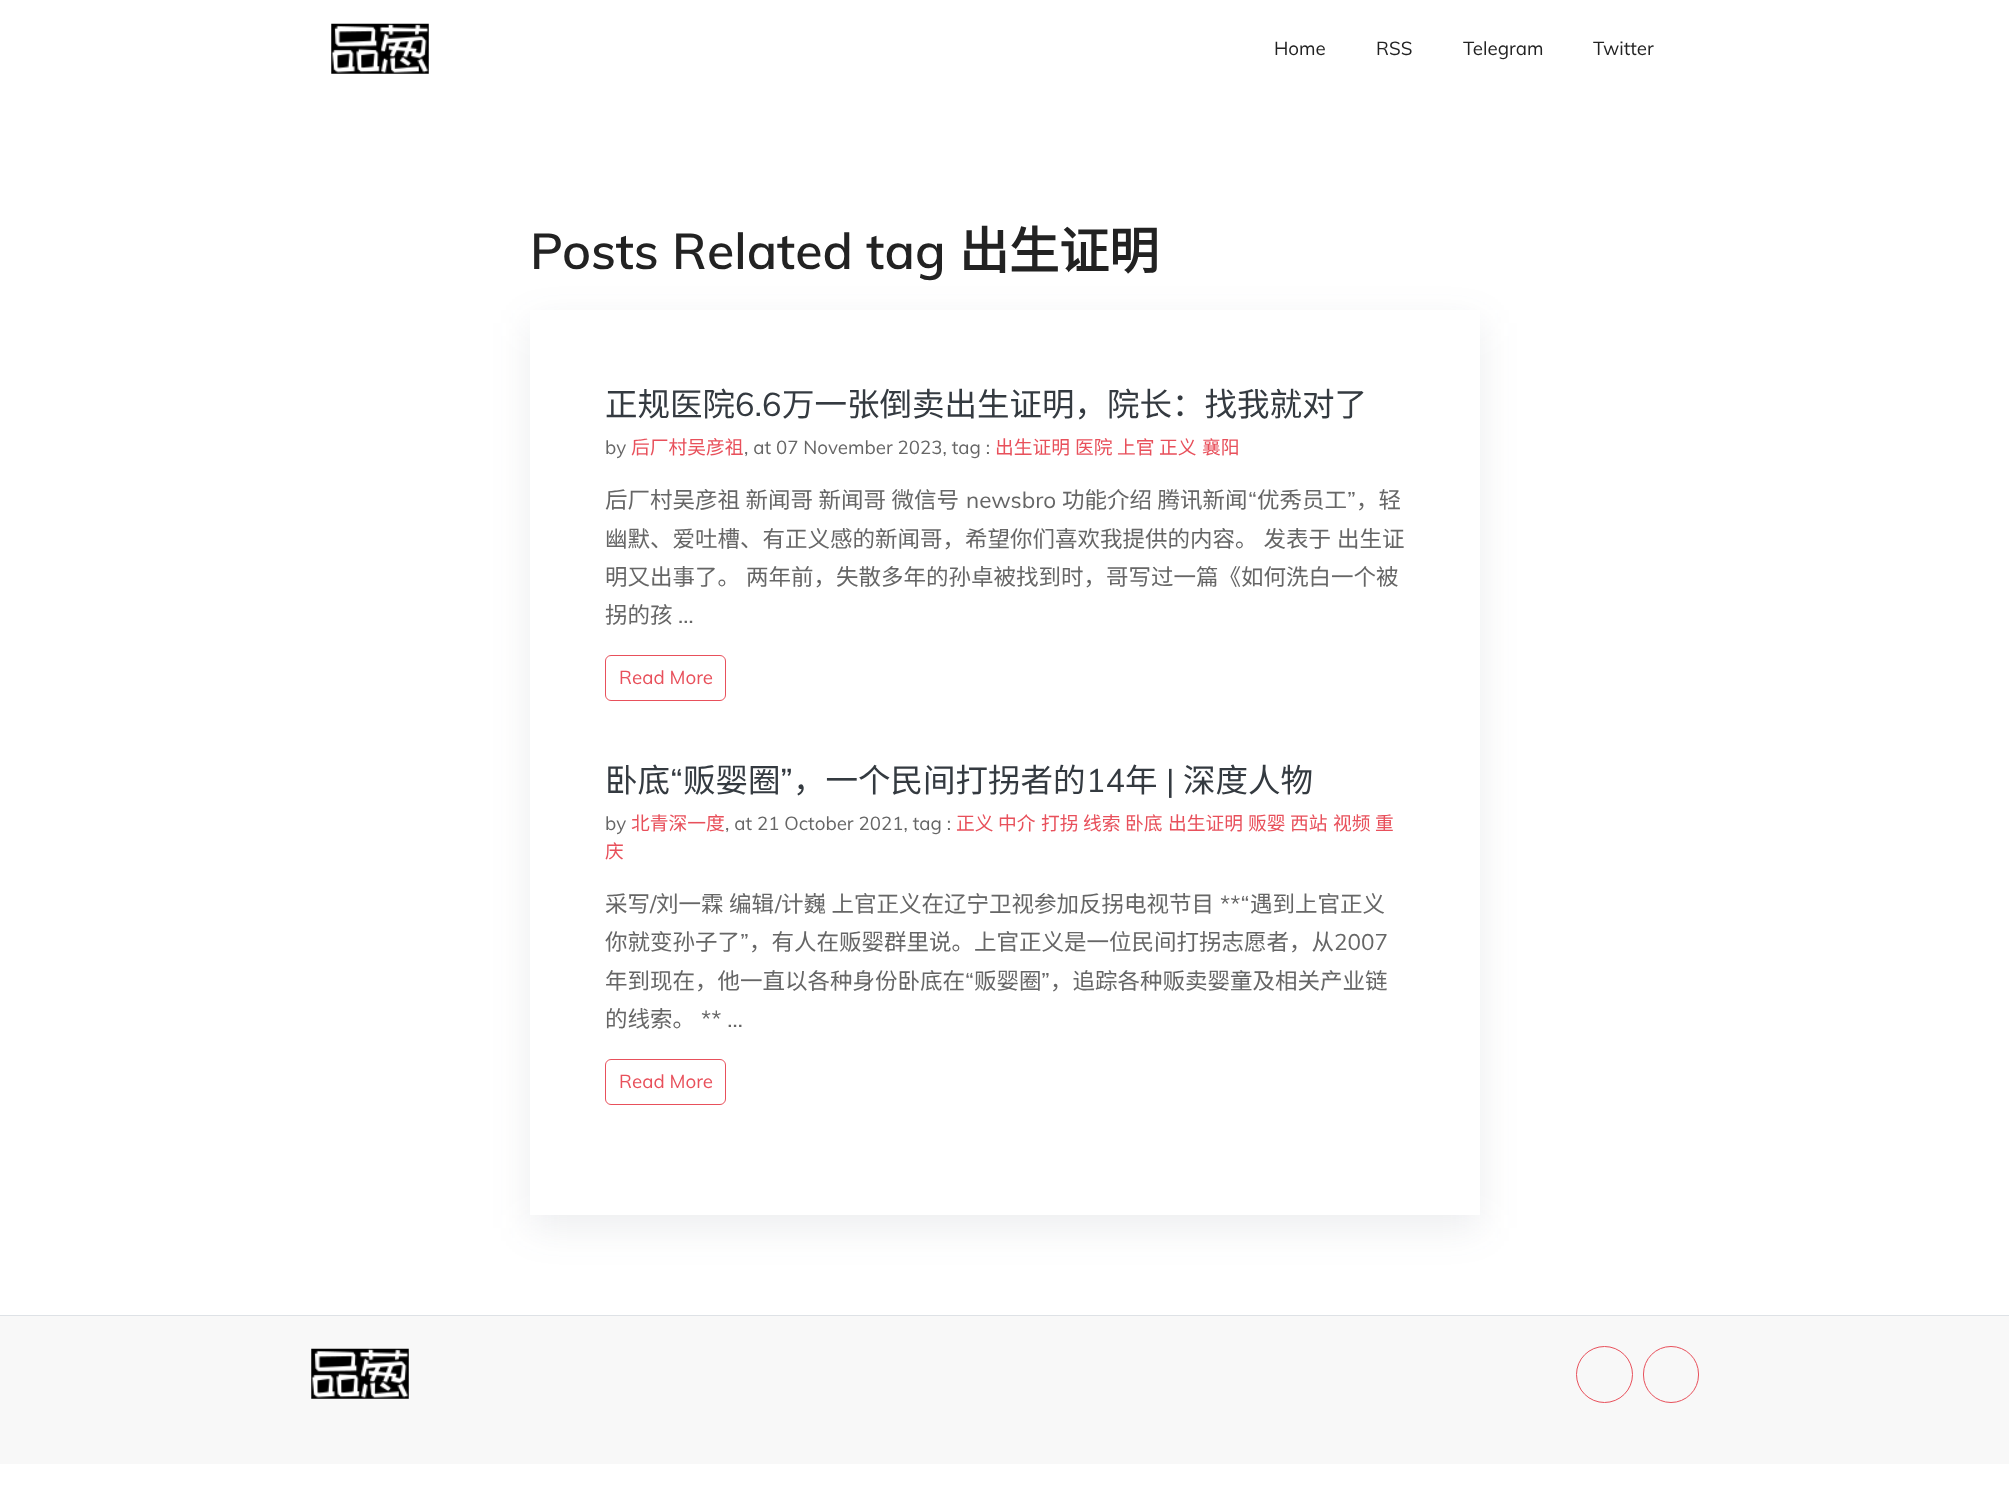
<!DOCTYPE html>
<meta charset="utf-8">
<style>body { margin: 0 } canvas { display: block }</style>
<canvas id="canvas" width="2009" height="1506"></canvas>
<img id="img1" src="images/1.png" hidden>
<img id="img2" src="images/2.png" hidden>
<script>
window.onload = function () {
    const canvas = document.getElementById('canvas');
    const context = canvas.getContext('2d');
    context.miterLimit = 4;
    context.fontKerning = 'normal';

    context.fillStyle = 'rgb(255, 255, 255)';
    context.fillRect(0, 0, 2009, 1506);
    context.drawImage(document.getElementById('img1'), 331, 23, 98, 51);
    context.save();
    context.beginPath();
    context.moveTo(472, 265);
    context.lineTo(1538, 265);
    context.lineTo(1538, 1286);
    context.lineTo(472, 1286);
    context.closePath();
    context.moveTo(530, 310);
    context.lineTo(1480, 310);
    context.lineTo(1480, 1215);
    context.lineTo(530, 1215);
    context.closePath();
    context.clip('evenodd');
    context.fillStyle = 'rgba(68, 74, 102, 0.1)';
    context.filter = 'blur(19px)';
    context.beginPath();
    context.rect(530, 323, 950, 905);
    context.fill();
    context.filter = 'none';
    context.restore();
    context.beginPath();
    context.roundRect(605.5, 655.5, 120, 45, 5.5);
    context.strokeStyle = 'rgb(232, 80, 91)';
    context.stroke();
    context.beginPath();
    context.roundRect(605.5, 1059.5, 120, 45, 5.5);
    context.stroke();
    context.fillStyle = 'rgb(248, 248, 248)';
    context.fillRect(0, 1316, 2009, 148);
    context.fillStyle = 'rgb(222, 226, 230)';
    context.fillRect(0, 1315, 2009, 1);
    context.drawImage(document.getElementById('img2'), 311, 1348, 98, 51);
    context.beginPath();
    context.arc(1604.5, 1374.5, 28, 0, 2 * Math.PI);
    context.stroke();
    context.beginPath();
    context.roundRect(1643.5, 1346.5, 55, 56, 27.5);
    context.stroke();
    context.font = '18.75px Muli';
    context.fillStyle = 'rgb(34, 34, 34)';
    context.fillText('Home', 1274, 55);
    context.fillText('RSS', 1376, 55);
    context.fillText('Telegram', 1463, 55);
    context.fillText('Twitter', 1593, 55);
    context.font = '600 50px Muli';
    context.fillText('Posts Related tag', 530, 269);
    context.font = 'bold 50px Noto Sans CJK SC';
    context.fillText('出生证明', 959, 269);
    context.font = '32.5px Noto Sans CJK SC';
    context.fillStyle = 'rgb(52, 58, 64)';
    context.fillText('正规医院', 605, 416);
    context.font = '32.5px Muli';
    context.fillText('6.6', 735, 416);
    context.font = '32.5px Noto Sans CJK SC';
    context.fillText('万一张倒卖出生证明，院长：找我就对了', 782, 416);
    context.font = '18.75px Muli';
    context.fillStyle = 'rgb(102, 102, 102)';
    context.fillText('by', 605, 454);
    context.font = '18.75px Noto Sans CJK SC';
    context.fillStyle = 'rgb(232, 80, 91)';
    context.fillText('后厂村吴彦祖', 631, 454);
    context.font = '18.75px Muli';
    context.fillStyle = 'rgb(102, 102, 102)';
    context.fillText(', at 07 November 2023, tag :', 744, 454);
    context.font = '18.75px Noto Sans CJK SC';
    context.fillStyle = 'rgb(232, 80, 91)';
    context.fillText('出生证明', 995, 454);
    context.fillText('医院', 1075, 454);
    context.fillText('上官', 1117, 454);
    context.fillText('正义', 1159, 454);
    context.fillText('襄阳', 1202, 454);
    context.wordSpacing = '0.5px';
    context.font = '22.5px Noto Sans CJK SC';
    context.fillStyle = 'rgb(102, 102, 102)';
    context.fillText('后厂村吴彦祖 新闻哥 新闻哥 微信号', 605, 508);
    context.wordSpacing = '0px';
    context.font = '22.5px Muli';
    context.fillText('newsbro', 966, 508);
    context.wordSpacing = '0.5px';
    context.font = '22.5px Noto Sans CJK SC';
    context.fillText('功能介绍 腾讯新闻', 1062, 508);
    context.wordSpacing = '0px';
    context.font = '22.5px Muli';
    context.fillText('“', 1248, 508);
    context.font = '22.5px Noto Sans CJK SC';
    context.fillText('优秀员工', 1257, 508);
    context.font = '22.5px Muli';
    context.fillText('”', 1347, 508);
    context.font = '22.5px Noto Sans CJK SC';
    context.fillText('，轻', 1356, 508);
    context.wordSpacing = '1px';
    context.fillText('幽默、爱吐槽、有正义感的新闻哥，希望你们喜欢我提供的内容。 发表于 出生证', 605, 547);
    context.fillText('明又出事了。 两年前，失散多年的孙卓被找到时，哥写过一篇《如何洗白一个被', 605, 585);
    context.wordSpacing = '0px';
    context.fillText('拐的孩', 605, 623);
    context.font = '22.5px Muli';
    context.fillText('…', 678, 623);
    context.font = '18.75px Muli';
    context.fillStyle = 'rgb(232, 80, 91)';
    context.fillText('Read More', 619, 684);
    context.font = '32.5px Noto Sans CJK SC';
    context.fillStyle = 'rgb(52, 58, 64)';
    context.fillText('卧底', 605, 792);
    context.font = '32.5px Muli';
    context.fillText('“', 670, 792);
    context.font = '32.5px Noto Sans CJK SC';
    context.fillText('贩婴圈', 683, 792);
    context.font = '32.5px Muli';
    context.fillText('”', 780, 792);
    context.font = '32.5px Noto Sans CJK SC';
    context.fillText('，一个民间打拐者的', 793, 792);
    context.font = '32.5px Muli';
    context.fillText('14', 1086, 792);
    context.font = '32.5px Noto Sans CJK SC';
    context.fillText('年', 1125, 792);
    context.font = '32.5px Muli';
    context.fillText('|', 1166, 792);
    context.font = '32.5px Noto Sans CJK SC';
    context.fillText('深度人物', 1183, 792);
    context.font = '18.75px Muli';
    context.fillStyle = 'rgb(102, 102, 102)';
    context.fillText('by', 605, 830);
    context.font = '18.75px Noto Sans CJK SC';
    context.fillStyle = 'rgb(232, 80, 91)';
    context.fillText('北青深一度', 631, 830);
    context.font = '18.75px Muli';
    context.fillStyle = 'rgb(102, 102, 102)';
    context.fillText(', at 21 October 2021, tag :', 725, 830);
    context.font = '18.75px Noto Sans CJK SC';
    context.fillStyle = 'rgb(232, 80, 91)';
    context.fillText('正义', 956, 830);
    context.fillText('中介', 998, 830);
    context.fillText('打拐', 1041, 830);
    context.fillText('线索', 1083, 830);
    context.fillText('卧底', 1125, 830);
    context.fillText('出生证明', 1168, 830);
    context.fillText('贩婴', 1248, 830);
    context.fillText('西站', 1290, 830);
    context.fillText('视频', 1333, 830);
    context.fillText('重', 1375, 830);
    context.fillText('庆', 605, 858);
    context.font = '22.5px Noto Sans CJK SC';
    context.fillStyle = 'rgb(102, 102, 102)';
    context.fillText('采写', 605, 912);
    context.font = '22.5px Muli';
    context.fillText('/', 650, 912);
    context.wordSpacing = '0.5px';
    context.font = '22.5px Noto Sans CJK SC';
    context.fillText('刘一霖 编辑', 656, 912);
    context.wordSpacing = '0px';
    context.font = '22.5px Muli';
    context.fillText('/', 775, 912);
    context.wordSpacing = '0.5px';
    context.font = '22.5px Noto Sans CJK SC';
    context.fillText('计巍 上官正义在辽宁卫视参加反拐电视节目', 781, 912);
    context.wordSpacing = '0px';
    context.font = '22.5px Muli';
    context.fillText('**“', 1220, 912);
    context.font = '22.5px Noto Sans CJK SC';
    context.fillText('遇到上官正义', 1250, 912);
    context.fillText('你就变孙子了', 605, 950);
    context.font = '22.5px Muli';
    context.fillText('”', 740, 950);
    context.font = '22.5px Noto Sans CJK SC';
    context.fillText('，有人在贩婴群里说。上官正义是一位民间打拐志愿者，从', 749, 950);
    context.font = '22.5px Muli';
    context.fillText('2007', 1334, 950);
    context.font = '22.5px Noto Sans CJK SC';
    context.fillText('年到现在，他一直以各种身份卧底在', 605, 989);
    context.font = '22.5px Muli';
    context.fillText('“', 965, 989);
    context.font = '22.5px Noto Sans CJK SC';
    context.fillText('贩婴圈', 974, 989);
    context.font = '22.5px Muli';
    context.fillText('”', 1041, 989);
    context.font = '22.5px Noto Sans CJK SC';
    context.fillText('，追踪各种贩卖婴童及相关产业链', 1050, 989);
    context.fillText('的线索。', 605, 1027);
    context.font = '22.5px Muli';
    context.fillText('** …', 701, 1027);
    context.font = '18.75px Muli';
    context.fillStyle = 'rgb(232, 80, 91)';
    context.fillText('Read More', 619, 1088);
};
</script>
